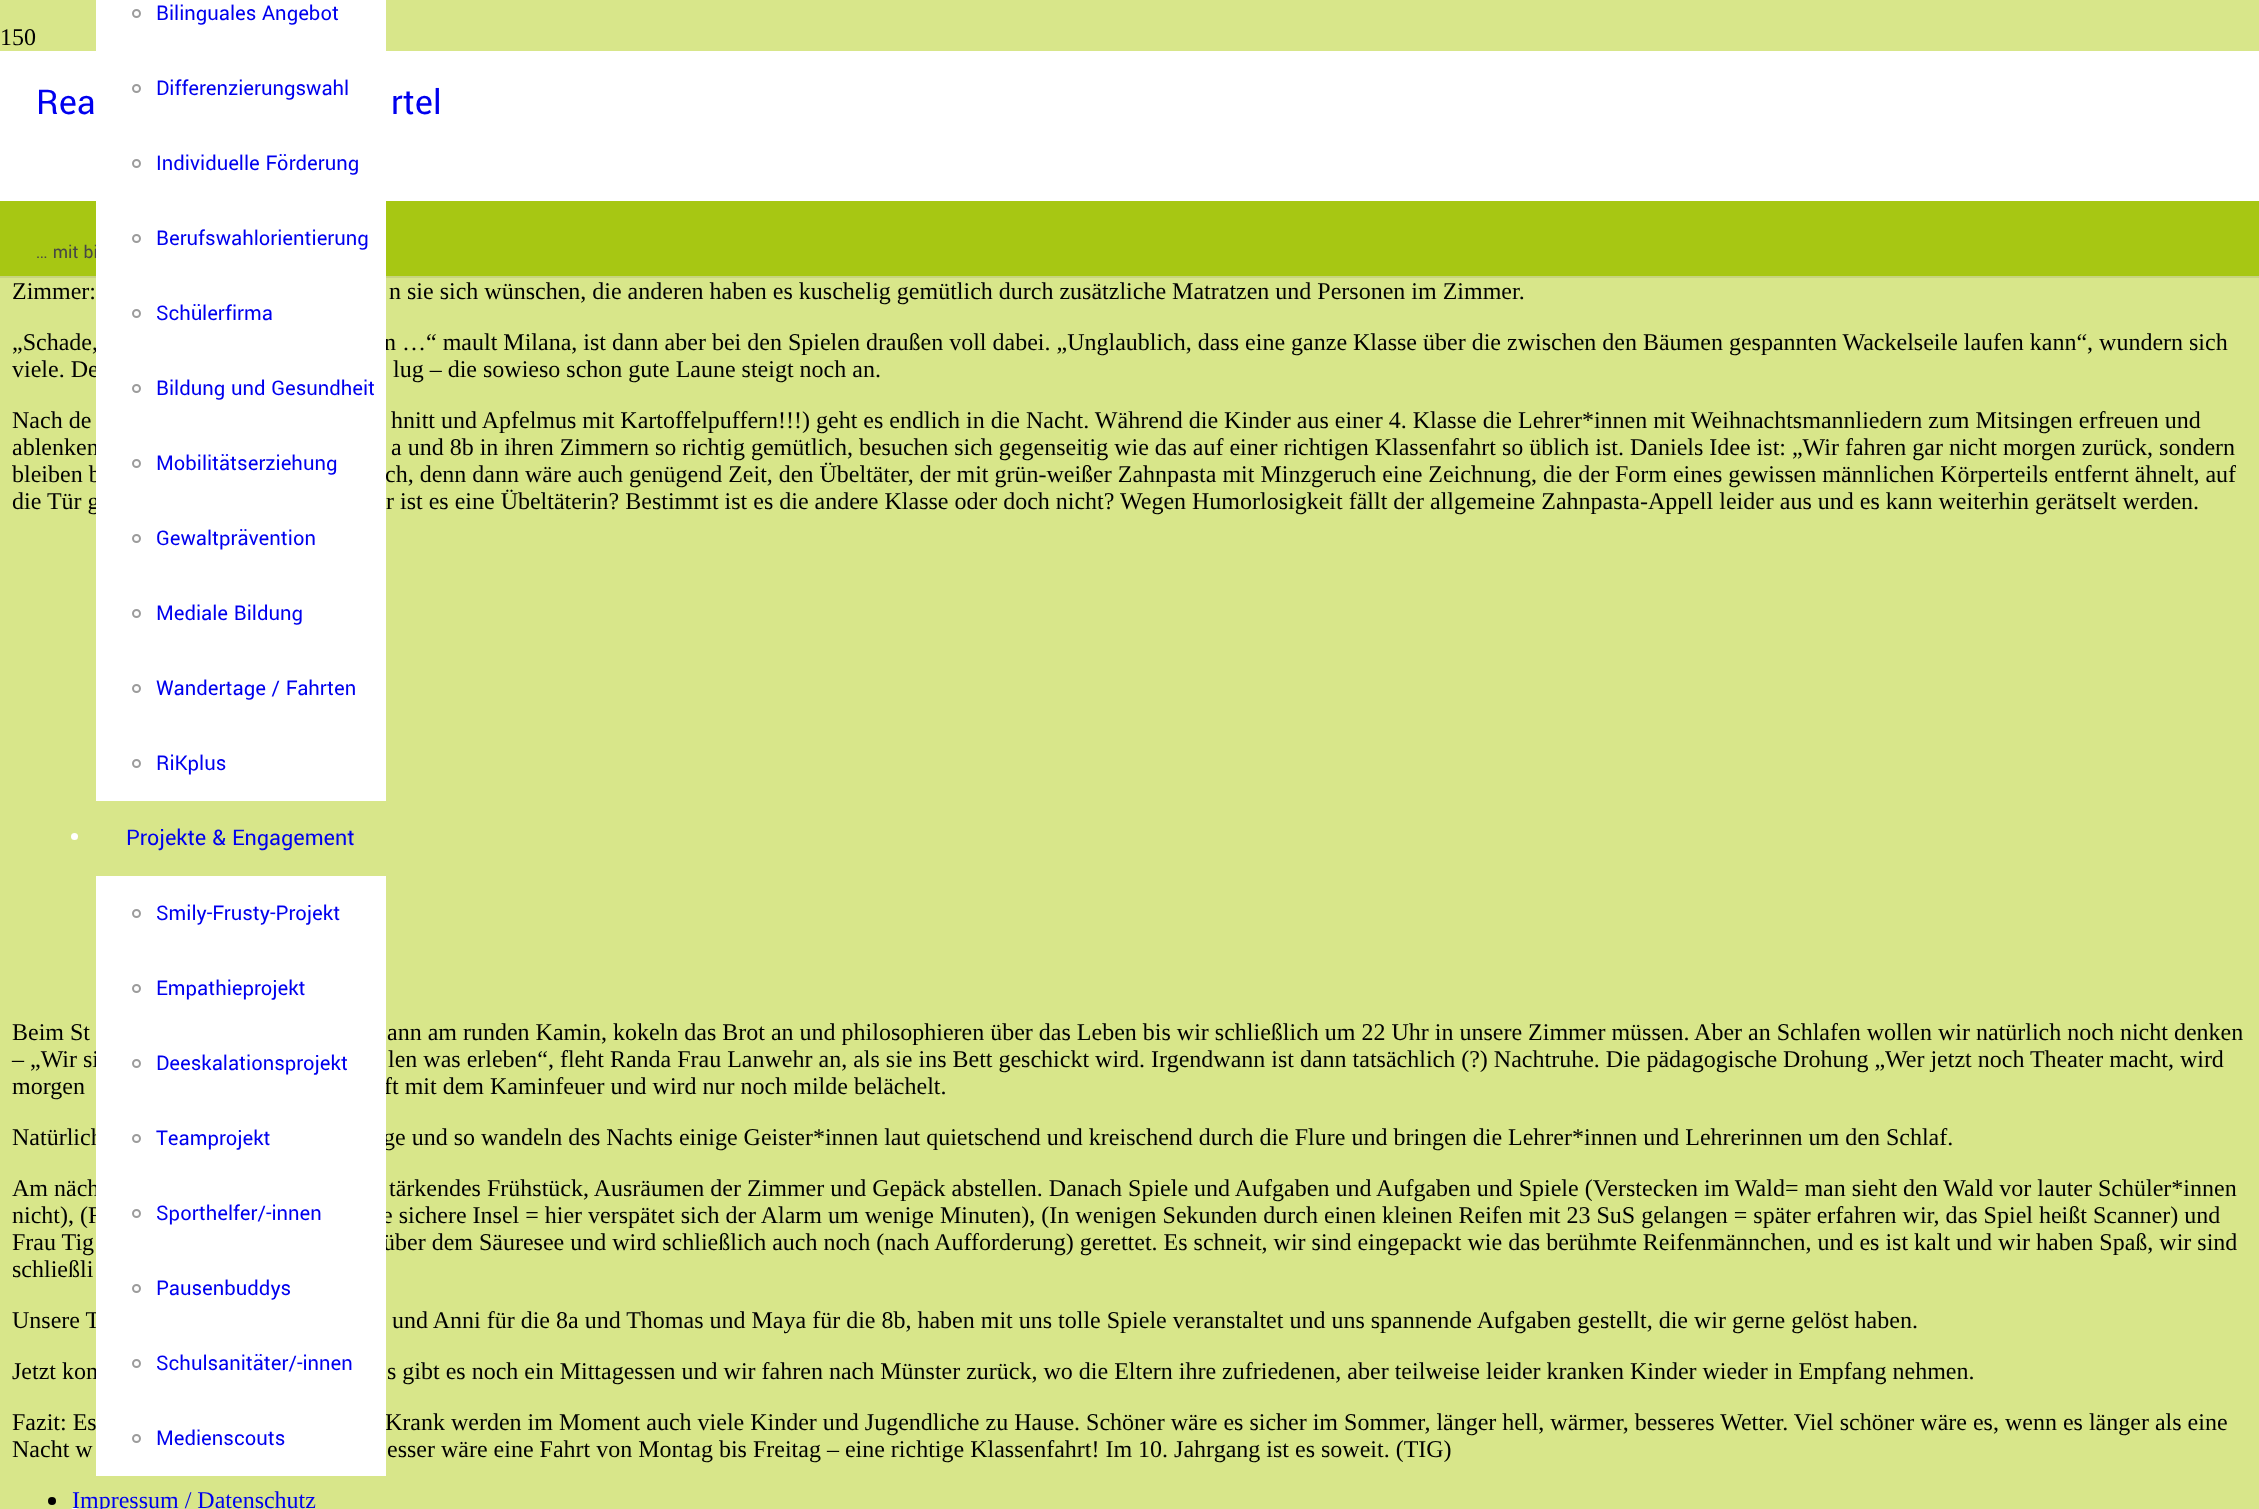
<!DOCTYPE html>
<meta charset="utf-8">
<style>body { margin: 0 } canvas { display: block }</style>
<canvas id="canvas" width="2259" height="1509"></canvas>
<script>
window.onload = function () {
    const canvas = document.getElementById('canvas');
    const context = canvas.getContext('2d');
    context.miterLimit = 4;
    context.fontKerning = 'normal';

    context.fillStyle = 'rgb(216, 230, 138)';
    context.fillRect(0, 0, 2259, 1509);
    context.fillStyle = 'rgba(0, 0, 0, 0.08)';
    context.fillRect(0, 276, 2259, 2);
    context.fillStyle = 'rgb(167, 199, 19)';
    context.fillRect(0, 201, 2259, 75);
    context.fillStyle = 'rgb(255, 255, 255)';
    context.beginPath();
    context.arc(74.5, 836.5, 3.5, 0, 2 * Math.PI);
    context.fill();
    context.fillRect(0, 51, 2259, 150);
    context.fillStyle = 'rgb(0, 0, 0)';
    context.beginPath();
    context.arc(52, 1501, 4, 0, 2 * Math.PI);
    context.fill();
    context.font = '24px Liberation Serif';
    context.fillText('150', 0, 45);
    context.font = '24px Yantramanav';
    context.fillStyle = 'rgb(0, 0, 238)';
    context.fillText('Projekte & Engagement', 126, 845);
    context.font = '38px Yantramanav';
    context.fillText('Rea', 36, 114);
    context.fillText('rtel', 391, 114);
    context.font = '19.5px Yantramanav';
    context.fillStyle = 'rgb(71, 71, 71)';
    context.fillText('… mit bi', 36, 258);
    context.font = '24px Liberation Serif';
    context.fillStyle = 'rgb(0, 0, 0)';
    context.fillText('Zimmer:', 12, 299);
    context.fillText('n sie sich wünschen, die anderen haben es kuschelig gemütlich durch zusätzliche Matratzen und Personen im Zimmer.', 389, 299);
    context.fillText('„Schade,', 12, 350);
    context.fillText('n …“ mault Milana, ist dann aber bei den Spielen draußen voll dabei. „Unglaublich, dass eine ganze Klasse über die zwischen den Bäumen gespannten Wackelseile laufen kann“, wundern sich', 384, 350);
    context.fillText('viele. De', 12, 377);
    context.fillText('lug – die sowieso schon gute Laune steigt noch an.', 393, 377);
    context.fillText('Nach de', 12, 428);
    context.fillText('hnitt und Apfelmus mit Kartoffelpuffern!!!) geht es endlich in die Nacht. Während die Kinder aus einer 4. Klasse die Lehrer*innen mit Weihnachtsmannliedern zum Mitsingen erfreuen und', 391, 428);
    context.fillText('ablenken', 12, 455);
    context.fillText('a und 8b in ihren Zimmern so richtig gemütlich, besuchen sich gegenseitig wie das auf einer richtigen Klassenfahrt so üblich ist. Daniels Idee ist: „Wir fahren gar nicht morgen zurück, sondern', 391, 455);
    context.fillText('bleiben b', 12, 482);
    context.fillText('ch, denn dann wäre auch genügend Zeit, den Übeltäter, der mit grün-weißer Zahnpasta mit Minzgeruch eine Zeichnung, die der Form eines gewissen männlichen Körperteils entfernt ähnelt, auf', 385, 482);
    context.fillText('die Tür g', 12, 509);
    context.fillStyle = 'rgb(255, 255, 255)';
    context.fillRect(96, 0, 290, 801);
    context.font = '22.5px Yantramanav';
    context.fillStyle = 'rgb(0, 0, 238)';
    context.fillText('RiKplus', 156, 770);
    context.beginPath();
    context.arc(136.5, 763.5, 3.5, 0, 2 * Math.PI);
    context.strokeStyle = 'rgb(156, 156, 156)';
    context.lineWidth = 2;
    context.stroke();
    context.fillText('Wandertage / Fahrten', 156, 695);
    context.beginPath();
    context.arc(136.5, 688.5, 3.5, 0, 2 * Math.PI);
    context.stroke();
    context.fillText('Mediale Bildung', 156, 620);
    context.beginPath();
    context.arc(136.5, 613.5, 3.5, 0, 2 * Math.PI);
    context.stroke();
    context.fillText('Gewaltprävention', 156, 545);
    context.beginPath();
    context.arc(136.5, 538.5, 3.5, 0, 2 * Math.PI);
    context.stroke();
    context.fillText('Mobilitätserziehung', 156, 470);
    context.beginPath();
    context.arc(136.5, 463.5, 3.5, 0, 2 * Math.PI);
    context.stroke();
    context.fillText('Bildung und Gesundheit', 156, 395);
    context.beginPath();
    context.arc(136.5, 388.5, 3.5, 0, 2 * Math.PI);
    context.stroke();
    context.fillText('Schülerfirma', 156, 320);
    context.beginPath();
    context.arc(136.5, 313.5, 3.5, 0, 2 * Math.PI);
    context.stroke();
    context.fillText('Berufswahlorientierung', 156, 245);
    context.beginPath();
    context.arc(136.5, 238.5, 3.5, 0, 2 * Math.PI);
    context.stroke();
    context.fillText('Individuelle Förderung', 156, 170);
    context.beginPath();
    context.arc(136.5, 163.5, 3.5, 0, 2 * Math.PI);
    context.stroke();
    context.fillText('Differenzierungswahl', 156, 95);
    context.beginPath();
    context.arc(136.5, 88.5, 3.5, 0, 2 * Math.PI);
    context.stroke();
    context.fillText('Bilinguales Angebot', 156, 20);
    context.beginPath();
    context.arc(136.5, 13.5, 3.5, 0, 2 * Math.PI);
    context.stroke();
    context.font = '24px Liberation Serif';
    context.fillStyle = 'rgb(0, 0, 0)';
    context.fillText('r ist es eine Übeltäterin? Bestimmt ist es die andere Klasse oder doch nicht? Wegen Humorlosigkeit fällt der allgemeine Zahnpasta-Appell leider aus und es kann weiterhin gerätselt werden.', 386, 509);
    context.fillText('Beim St', 12, 1040);
    context.fillText('ann am runden Kamin, kokeln das Brot an und philosophieren über das Leben bis wir schließlich um 22 Uhr in unsere Zimmer müssen. Aber an Schlafen wollen wir natürlich noch nicht denken', 387, 1040);
    context.fillText('– „Wir si', 12, 1067);
    context.fillText('len was erleben“, fleht Randa Frau Lanwehr an, als sie ins Bett geschickt wird. Irgendwann ist dann tatsächlich (?) Nachtruhe. Die pädagogische Drohung „Wer jetzt noch Theater macht, wird', 388, 1067);
    context.fillText('morgen', 12, 1094);
    context.fillText('ft mit dem Kaminfeuer und wird nur noch milde belächelt.', 384, 1094);
    context.fillText('Natürlich', 12, 1145);
    context.fillText('ge und so wandeln des Nachts einige Geister*innen laut quietschend und kreischend durch die Flure und bringen die Lehrer*innen und Lehrerinnen um den Schlaf.', 383, 1145);
    context.fillText('Am näch', 12, 1196);
    context.fillText('tärkendes Frühstück, Ausräumen der Zimmer und Gepäck abstellen. Danach Spiele und Aufgaben und Aufgaben und Spiele (Verstecken im Wald= man sieht den Wald vor lauter Schüler*innen', 389, 1196);
    context.fillText('nicht), (R', 12, 1223);
    context.fillText('e sichere Insel = hier verspätet sich der Alarm um wenige Minuten), (In wenigen Sekunden durch einen kleinen Reifen mit 23 SuS gelangen = später erfahren wir, das Spiel heißt Scanner) und', 382, 1223);
    context.fillText('Frau Tig', 12, 1250);
    context.fillText('über dem Säuresee und wird schließlich auch noch (nach Aufforderung) gerettet. Es schneit, wir sind eingepackt wie das berühmte Reifenmännchen, und es ist kalt und wir haben Spaß, wir sind', 383, 1250);
    context.fillText('schließli', 12, 1277);
    context.fillText('Unsere T', 12, 1328);
    context.fillText('und Anni für die 8a und Thomas und Maya für die 8b, haben mit uns tolle Spiele veranstaltet und uns spannende Aufgaben gestellt, die wir gerne gelöst haben.', 392, 1328);
    context.fillText('Jetzt kom', 12, 1379);
    context.fillText('s gibt es noch ein Mittagessen und wir fahren nach Münster zurück, wo die Eltern ihre zufriedenen, aber teilweise leider kranken Kinder wieder in Empfang nehmen.', 387, 1379);
    context.fillText('Fazit: Es', 12, 1430);
    context.fillText('Krank werden im Moment auch viele Kinder und Jugendliche zu Hause. Schöner wäre es sicher im Sommer, länger hell, wärmer, besseres Wetter. Viel schöner wäre es, wenn es länger als eine', 385, 1430);
    context.fillStyle = 'rgb(255, 255, 255)';
    context.fillRect(96, 876, 290, 600);
    context.font = '22.5px Yantramanav';
    context.fillStyle = 'rgb(0, 0, 238)';
    context.fillText('Medienscouts', 156, 1445);
    context.beginPath();
    context.arc(136.5, 1438.5, 3.5, 0, 2 * Math.PI);
    context.stroke();
    context.fillText('Schulsanitäter/-innen', 156, 1370);
    context.beginPath();
    context.arc(136.5, 1363.5, 3.5, 0, 2 * Math.PI);
    context.stroke();
    context.fillText('Pausenbuddys', 156, 1295);
    context.beginPath();
    context.arc(136.5, 1288.5, 3.5, 0, 2 * Math.PI);
    context.stroke();
    context.fillText('Sporthelfer/-innen', 156, 1220);
    context.beginPath();
    context.arc(136.5, 1213.5, 3.5, 0, 2 * Math.PI);
    context.stroke();
    context.fillText('Teamprojekt', 156, 1145);
    context.beginPath();
    context.arc(136.5, 1138.5, 3.5, 0, 2 * Math.PI);
    context.stroke();
    context.fillText('Deeskalationsprojekt', 156, 1070);
    context.beginPath();
    context.arc(136.5, 1063.5, 3.5, 0, 2 * Math.PI);
    context.stroke();
    context.fillText('Empathieprojekt', 156, 995);
    context.beginPath();
    context.arc(136.5, 988.5, 3.5, 0, 2 * Math.PI);
    context.stroke();
    context.fillText('Smily-Frusty-Projekt', 156, 920);
    context.beginPath();
    context.arc(136.5, 913.5, 3.5, 0, 2 * Math.PI);
    context.stroke();
    context.font = '24px Liberation Serif';
    context.fillStyle = 'rgb(0, 0, 0)';
    context.fillText('Nacht w', 12, 1457);
    context.fillText('esser wäre eine Fahrt von Montag bis Freitag – eine richtige Klassenfahrt! Im 10. Jahrgang ist es soweit. (TIG)', 387, 1457);
    context.fillStyle = 'rgb(0, 0, 238)';
    context.fillText('Impressum / Datenschutz', 72, 1508);
    context.fillStyle = 'rgb(255, 255, 255)';
    context.beginPath();
    context.roundRect(71, 1508, 7, 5, 3.5);
    context.fill();
};
</script>
